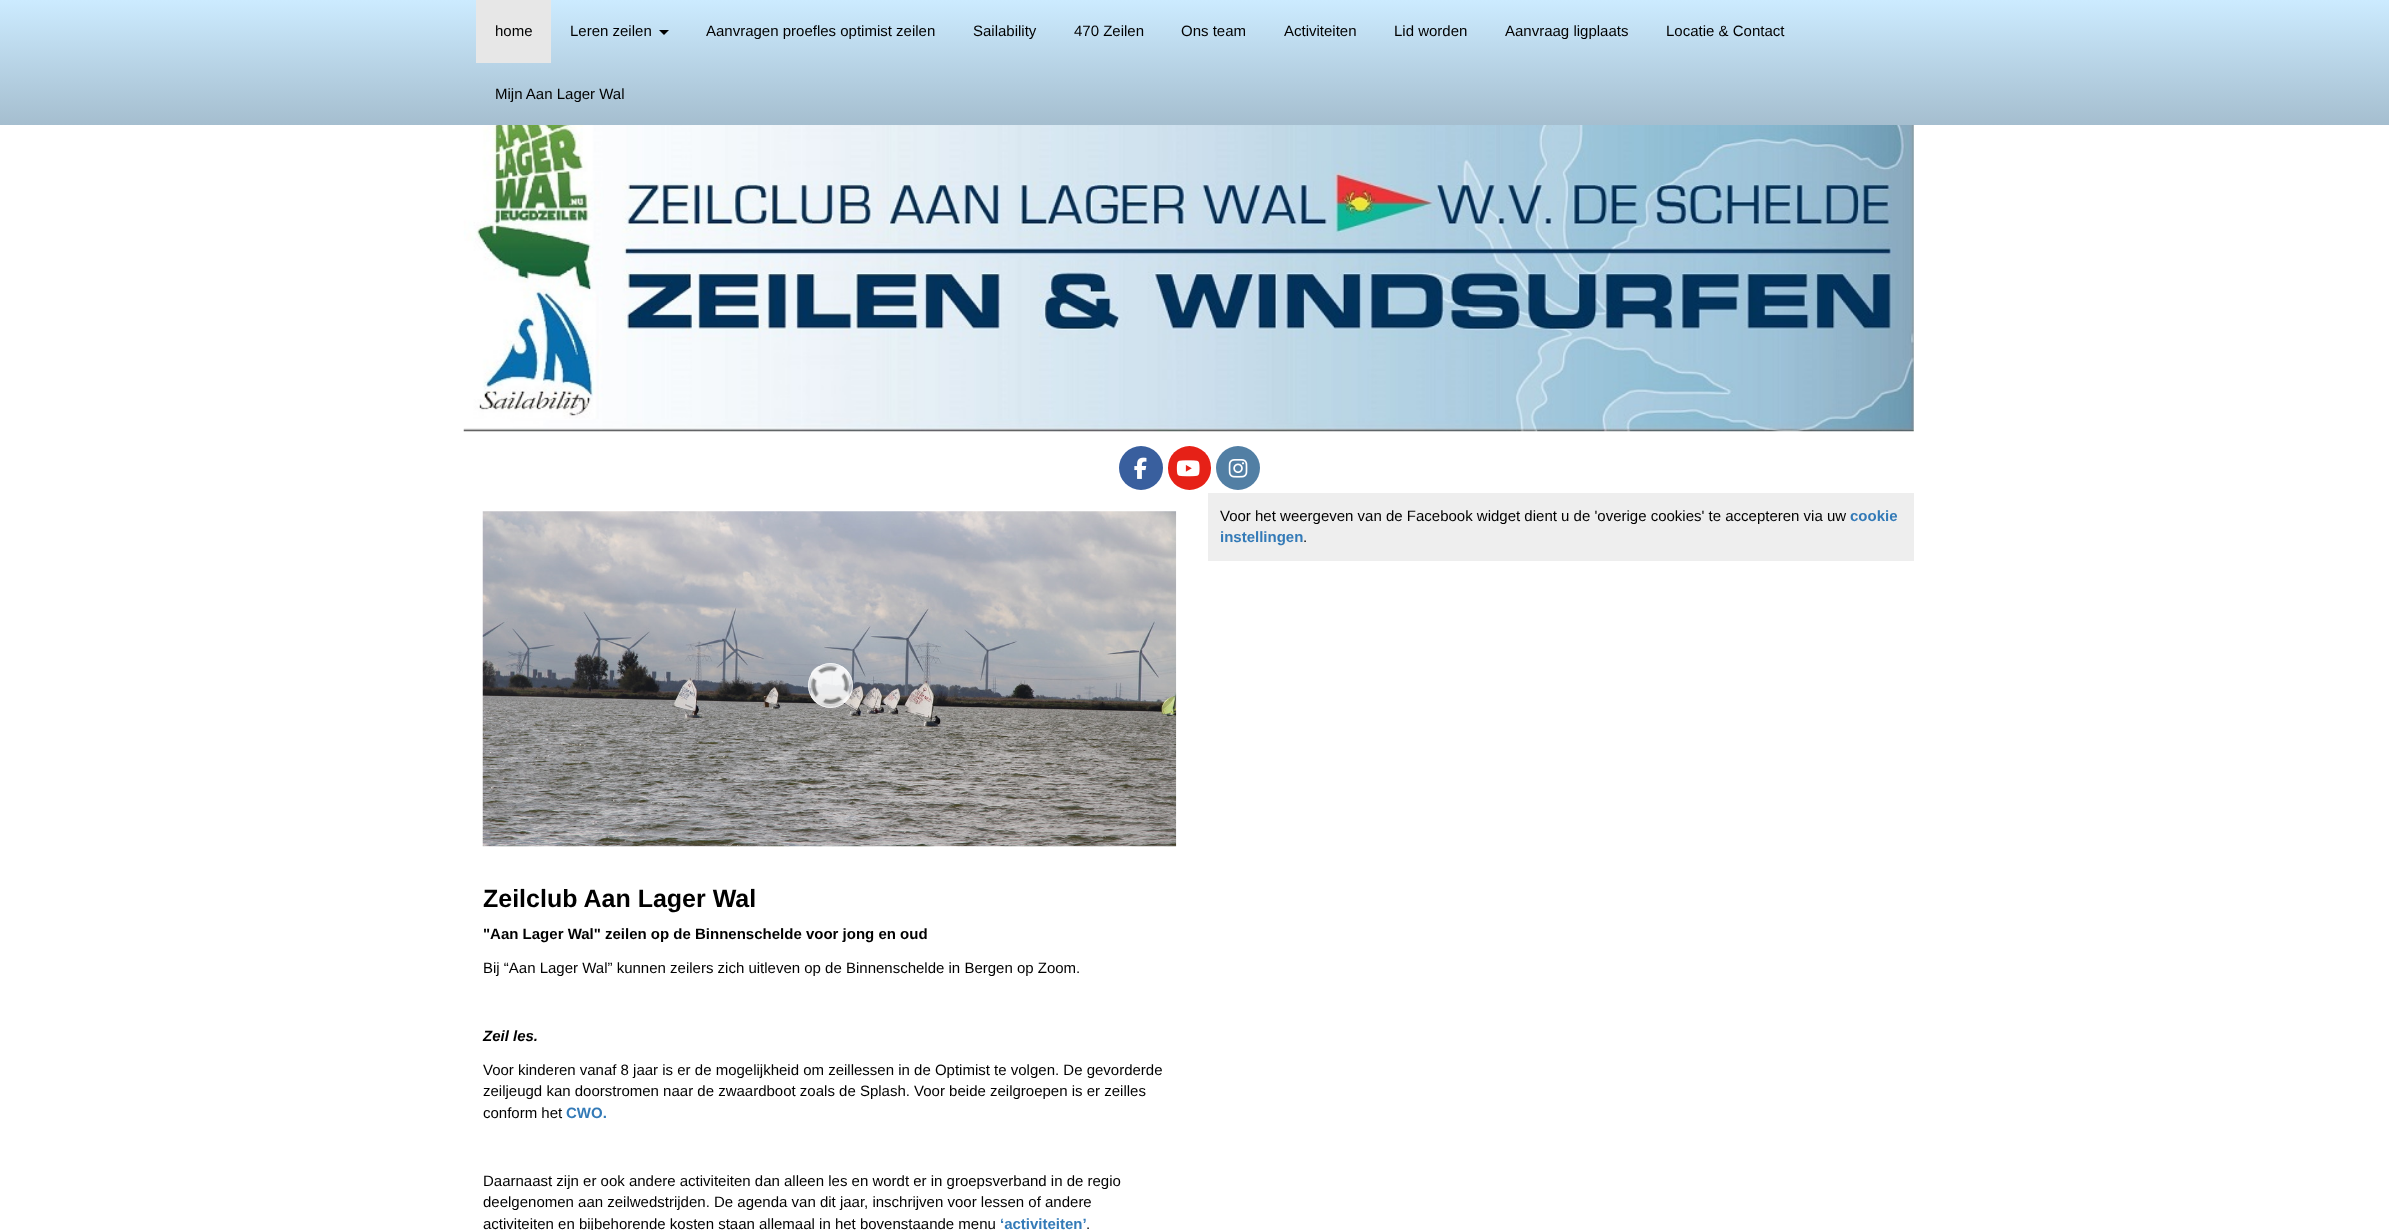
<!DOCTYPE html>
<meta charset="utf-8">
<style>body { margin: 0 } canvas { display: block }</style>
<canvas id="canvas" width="2389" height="1230"></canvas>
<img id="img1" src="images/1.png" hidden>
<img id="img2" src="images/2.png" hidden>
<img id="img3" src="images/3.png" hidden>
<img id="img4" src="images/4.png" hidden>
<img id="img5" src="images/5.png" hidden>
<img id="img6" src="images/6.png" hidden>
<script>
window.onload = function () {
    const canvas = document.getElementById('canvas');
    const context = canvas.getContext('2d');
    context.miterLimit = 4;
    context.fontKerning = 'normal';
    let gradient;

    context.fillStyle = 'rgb(255, 255, 255)';
    context.fillRect(0, 0, 2389, 1230);
    gradient = context.createLinearGradient(1195, 0, 1195, 125);
    gradient.addColorStop(0, 'rgb(204, 235, 255)');
    gradient.addColorStop(1, 'rgb(165, 190, 207)');
    context.fillStyle = gradient;
    context.fillRect(0, 0, 2389, 125);
    context.fillStyle = 'rgb(231, 231, 231)';
    context.fillRect(476, 0, 75, 63);
    context.fillStyle = 'rgb(0, 0, 0)';
    context.beginPath();
    context.moveTo(659, 30);
    context.lineTo(669, 30);
    context.lineTo(664, 35);
    context.closePath();
    context.fill();
    context.drawImage(document.getElementById('img1'), 463, 125, 1451, 307);
    context.fillStyle = 'rgb(57, 95, 158)';
    context.beginPath();
    context.arc(1141, 468, 22, 0, 2 * Math.PI);
    context.fill();
    context.drawImage(document.getElementById('img2'), 1134, 457, 13, 22);
    context.fillStyle = 'rgb(230, 33, 23)';
    context.beginPath();
    context.roundRect(1168, 446, 43, 44, 21.5);
    context.fill();
    context.drawImage(document.getElementById('img3'), 1176, 460, 24, 17);
    context.fillStyle = 'rgb(82, 127, 164)';
    context.beginPath();
    context.arc(1238, 468, 22, 0, 2 * Math.PI);
    context.fill();
    context.drawImage(document.getElementById('img4'), 1228, 459, 20, 19);
    context.fillStyle = 'rgb(238, 238, 238)';
    context.fillRect(1208, 493, 706, 68);
    context.drawImage(document.getElementById('img5'), 482, 511, 695, 336);
    context.fillStyle = 'rgba(255, 255, 255, 0.63)';
    context.beginPath();
    context.arc(830.5, 685.5, 22.5, 0, 2 * Math.PI);
    context.fill();
    context.drawImage(document.getElementById('img6'), 811, 666, 38, 38);
    context.beginPath();
    context.arc(830.5, 685.5, 22, 0, 2 * Math.PI);
    context.strokeStyle = 'rgba(255, 255, 255, 0.7)';
    context.stroke();
    context.font = '15px Liberation Sans';
    context.fillStyle = 'rgb(0, 0, 0)';
    context.fillText('home', 495, 36);
    context.fillText('Leren zeilen', 570, 36);
    context.fillText('Aanvragen proefles optimist zeilen', 706, 36);
    context.fillText('Sailability', 973, 36);
    context.fillText('470 Zeilen', 1074, 36);
    context.fillText('Ons team', 1181, 36);
    context.fillText('Activiteiten', 1284, 36);
    context.fillText('Lid worden', 1394, 36);
    context.fillText('Aanvraag ligplaats', 1505, 36);
    context.fillText('Locatie & Contact', 1666, 36);
    context.fillText('Mijn Aan Lager Wal', 495, 99);
    context.fillText('Voor het weergeven van de Facebook widget dient u de \'overige cookies\' te accepteren via uw', 1220, 521);
    context.font = 'bold 15px Liberation Sans';
    context.fillStyle = 'rgb(51, 122, 183)';
    context.fillText('cookie', 1850, 521);
    context.fillText('instellingen', 1220, 542);
    context.font = '15px Liberation Sans';
    context.fillStyle = 'rgb(0, 0, 0)';
    context.fillText('.', 1303, 542);
    context.font = 'bold 25px Liberation Sans';
    context.fillText('Zeilclub Aan Lager Wal', 483, 907);
    context.font = 'bold 15px Liberation Sans';
    context.fillText('"Aan Lager Wal" zeilen op de Binnenschelde voor jong en oud', 483, 939);
    context.font = '15px Liberation Sans';
    context.fillText('Bij “Aan Lager Wal” kunnen zeilers zich uitleven op de Binnenschelde in Bergen op Zoom.', 483, 973);
    context.font = 'italic bold 15px Liberation Sans';
    context.fillText('Zeil les.', 483, 1041);
    context.font = '15px Liberation Sans';
    context.fillText('Voor kinderen vanaf 8 jaar is er de mogelijkheid om zeillessen in de Optimist te volgen. De gevorderde', 483, 1075);
    context.fillText('zeiljeugd kan doorstromen naar de zwaardboot zoals de Splash. Voor beide zeilgroepen is er zeilles', 483, 1096);
    context.fillText('conform het', 483, 1118);
    context.font = 'bold 15px Liberation Sans';
    context.fillStyle = 'rgb(51, 122, 183)';
    context.fillText('CWO.', 566, 1118);
    context.font = '15px Liberation Sans';
    context.fillStyle = 'rgb(0, 0, 0)';
    context.fillText('Daarnaast zijn er ook andere activiteiten dan alleen les en wordt er in groepsverband in de regio', 483, 1186);
    context.fillText('deelgenomen aan zeilwedstrijden. De agenda van dit jaar, inschrijven voor lessen of andere', 483, 1207);
    context.fillText('activiteiten en bijbehorende kosten staan allemaal in het bovenstaande menu', 483, 1229);
    context.font = 'bold 15px Liberation Sans';
    context.fillStyle = 'rgb(51, 122, 183)';
    context.fillText('‘activiteiten’', 1000, 1229);
    context.font = '15px Liberation Sans';
    context.fillStyle = 'rgb(0, 0, 0)';
    context.fillText('.', 1086, 1229);
};
</script>
